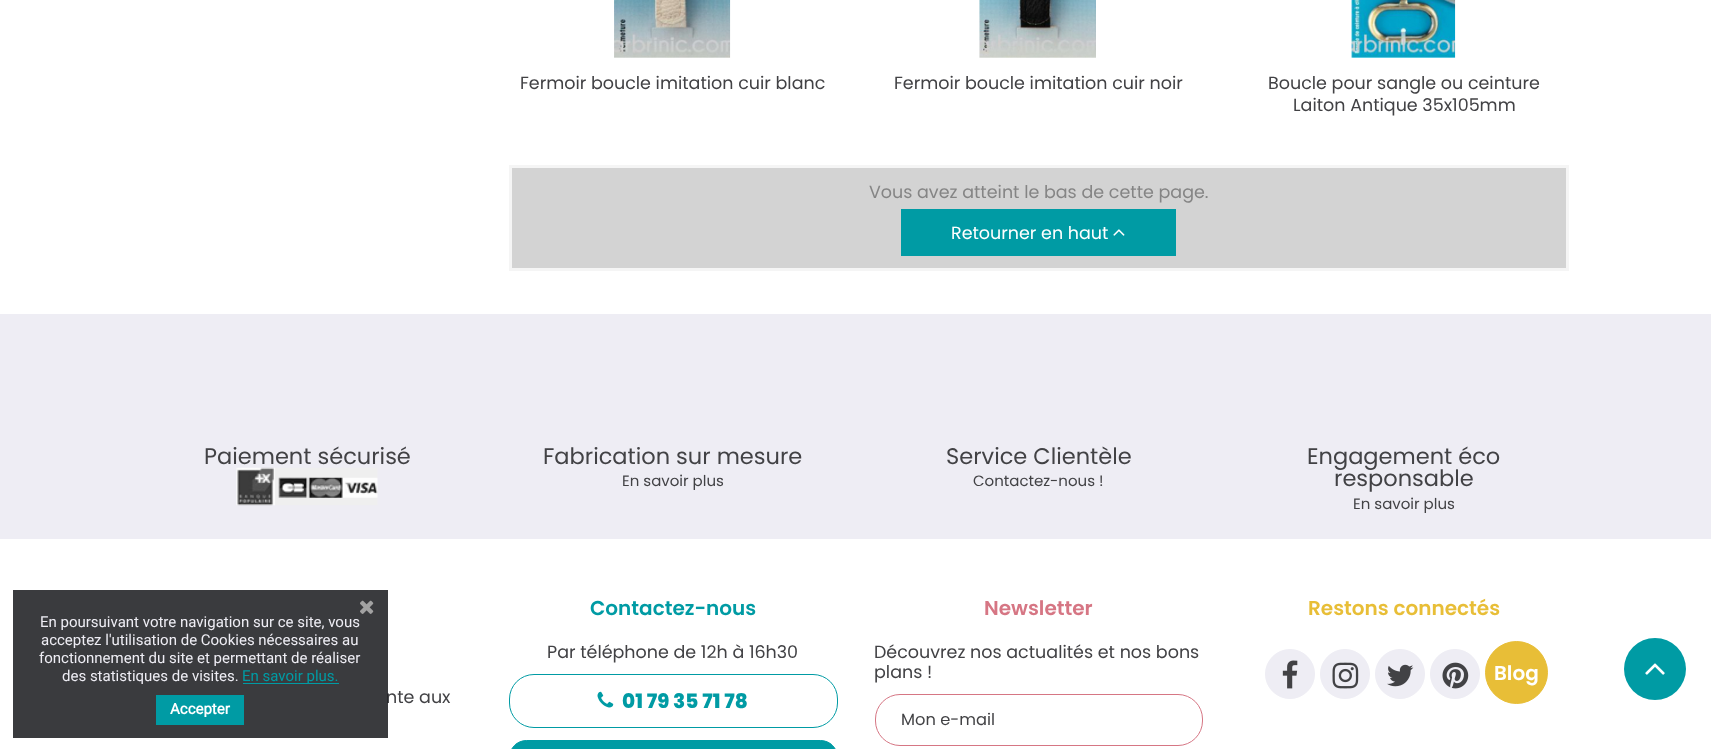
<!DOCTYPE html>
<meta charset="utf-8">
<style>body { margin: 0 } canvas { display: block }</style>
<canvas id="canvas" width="1711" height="749"></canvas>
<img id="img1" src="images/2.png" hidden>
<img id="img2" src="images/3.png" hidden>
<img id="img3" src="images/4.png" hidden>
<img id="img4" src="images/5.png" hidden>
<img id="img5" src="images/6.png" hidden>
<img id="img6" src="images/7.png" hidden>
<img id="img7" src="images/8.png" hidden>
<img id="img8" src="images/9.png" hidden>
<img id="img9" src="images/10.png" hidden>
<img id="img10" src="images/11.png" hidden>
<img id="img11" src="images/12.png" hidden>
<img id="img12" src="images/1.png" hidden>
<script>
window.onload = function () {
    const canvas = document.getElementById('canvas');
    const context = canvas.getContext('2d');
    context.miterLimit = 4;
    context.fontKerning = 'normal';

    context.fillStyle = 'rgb(255, 255, 255)';
    context.fillRect(0, 0, 1711, 749);
    context.drawImage(document.getElementById('img1'), 614, 0, 117, 58);
    context.drawImage(document.getElementById('img2'), 979, 0, 117, 58);
    context.drawImage(document.getElementById('img3'), 1351, 0, 105, 58);
    context.fillStyle = 'rgb(211, 211, 211)';
    context.beginPath();
    context.rect(510.5, 166.5, 1057, 103);
    context.fill();
    context.strokeStyle = 'rgb(245, 245, 245)';
    context.lineWidth = 3;
    context.stroke();
    context.fillStyle = 'rgb(0, 155, 164)';
    context.fillRect(901, 209, 275, 47);
    context.drawImage(document.getElementById('img4'), 1113, 229, 12, 7);
    context.fillStyle = 'rgb(238, 237, 244)';
    context.fillRect(0, 314, 1711, 225);
    context.drawImage(document.getElementById('img5'), 236, 467, 142, 39);
    context.beginPath();
    context.roundRect(509.5, 674.5, 328, 53, 24.5);
    context.strokeStyle = 'rgb(0, 155, 164)';
    context.lineWidth = 1;
    context.stroke();
    context.drawImage(document.getElementById('img6'), 597, 691, 17, 17);
    context.fillStyle = 'rgb(0, 155, 164)';
    context.beginPath();
    context.roundRect(509.5, 740.5, 328, 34, 24.5);
    context.fill();
    context.stroke();
    context.beginPath();
    context.roundRect(875.5, 694.5, 327, 51, 24.5);
    context.strokeStyle = 'rgb(214, 118, 132)';
    context.stroke();
    context.fillStyle = 'rgb(238, 237, 244)';
    context.beginPath();
    context.arc(1290, 674, 24.5, 0, 2 * Math.PI);
    context.fill();
    context.strokeStyle = 'rgb(238, 237, 244)';
    context.stroke();
    context.drawImage(document.getElementById('img7'), 1282, 660, 16, 29);
    context.beginPath();
    context.arc(1345, 674, 24.5, 0, 2 * Math.PI);
    context.fill();
    context.stroke();
    context.drawImage(document.getElementById('img8'), 1332, 662, 27, 27);
    context.beginPath();
    context.arc(1400, 674, 24.5, 0, 2 * Math.PI);
    context.fill();
    context.stroke();
    context.drawImage(document.getElementById('img9'), 1387, 664, 27, 23);
    context.beginPath();
    context.arc(1455, 674, 24.5, 0, 2 * Math.PI);
    context.fill();
    context.stroke();
    context.drawImage(document.getElementById('img10'), 1442, 662, 27, 27);
    context.fillStyle = 'rgb(232, 190, 55)';
    context.beginPath();
    context.arc(1516.5, 672.5, 31, 0, 2 * Math.PI);
    context.fill();
    context.strokeStyle = 'rgb(232, 190, 55)';
    context.stroke();
    context.fillStyle = 'rgb(0, 155, 164)';
    context.beginPath();
    context.arc(1655, 669, 31, 0, 2 * Math.PI);
    context.fill();
    context.drawImage(document.getElementById('img11'), 1645, 663, 20, 12);
    context.font = '17.5px Poppins';
    context.fillStyle = 'rgb(66, 66, 69)';
    context.fillText('Fermoir boucle imitation cuir blanc', 520, 89);
    context.fillText('Fermoir boucle imitation cuir noir', 894, 89);
    context.fillText('Boucle pour sangle ou ceinture', 1268, 89);
    context.fillText('Laiton Antique 35x105mm', 1293, 111);
    context.fillStyle = 'rgb(133, 133, 133)';
    context.fillText('Vous avez atteint le bas de cette page.', 869, 198);
    context.fillStyle = 'rgb(255, 255, 255)';
    context.fillText('Retourner en haut', 951, 239);
    context.font = '22.5px Poppins';
    context.fillStyle = 'rgb(66, 66, 69)';
    context.fillText('Paiement sécurisé', 204, 464);
    context.fillText('Fabrication sur mesure', 543, 464);
    context.font = '15px Poppins';
    context.fillText('En savoir plus', 622, 486);
    context.font = '22.5px Poppins';
    context.fillText('Service Clientèle', 946, 464);
    context.font = '15px Poppins';
    context.fillText('Contactez-nous !', 973, 486);
    context.font = '22.5px Poppins';
    context.fillText('Engagement éco', 1307, 464);
    context.fillText('responsable', 1334, 486);
    context.font = '15px Poppins';
    context.fillText('En savoir plus', 1353, 509);
    context.font = '17.5px Poppins';
    context.fillText('nte aux', 386, 703);
    context.fillStyle = 'rgba(23, 25, 28, 0.85)';
    context.fillRect(13, 590, 375, 148);
    context.drawImage(document.getElementById('img12'), 360, 600, 14, 14);
    context.fillStyle = 'rgb(0, 155, 164)';
    context.fillRect(156, 695, 88, 30);
    context.font = 'bold 15px Roboto';
    context.fillStyle = 'rgb(255, 255, 255)';
    context.fillText('Accepter', 170, 714);
    context.fillStyle = 'rgb(0, 155, 164)';
    context.fillRect(243, 683, 96, 1);
    context.font = '15px Roboto';
    context.fillText('En savoir plus.', 242, 681);
    context.fillStyle = 'rgb(238, 237, 244)';
    context.fillText('des statistiques de visites.', 62, 681);
    context.fillText('fonctionnement du site et permettant de réaliser', 39, 663);
    context.fillText('acceptez l\'utilisation de Cookies nécessaires au', 41, 645);
    context.fillText('En poursuivant votre navigation sur ce site, vous', 40, 627);
    context.font = '600 20px Poppins';
    context.fillStyle = 'rgb(0, 155, 164)';
    context.fillText('Contactez-nous', 590, 615);
    context.font = '17.5px Poppins';
    context.fillStyle = 'rgb(66, 66, 69)';
    context.fillText('Par téléphone de 12h à 16h30', 547, 658);
    context.font = '800 20px Poppins';
    context.fillStyle = 'rgb(0, 155, 164)';
    context.fillText('01 79 35 71 78', 622, 708);
    context.font = '600 20px Poppins';
    context.fillStyle = 'rgb(214, 118, 132)';
    context.fillText('Newsletter', 984, 615);
    context.font = '17.5px Poppins';
    context.fillStyle = 'rgb(66, 66, 69)';
    context.fillText('Découvrez nos actualités et nos bons', 874, 658);
    context.fillText('plans !', 874, 678);
    context.font = '16.25px Poppins';
    context.fillText('Mon e-mail', 901, 725);
    context.font = '600 20px Poppins';
    context.fillStyle = 'rgb(232, 190, 55)';
    context.fillText('Restons connectés', 1308, 615);
    context.fillStyle = 'rgb(255, 255, 255)';
    context.fillText('Blog', 1494, 680);
};
</script>
